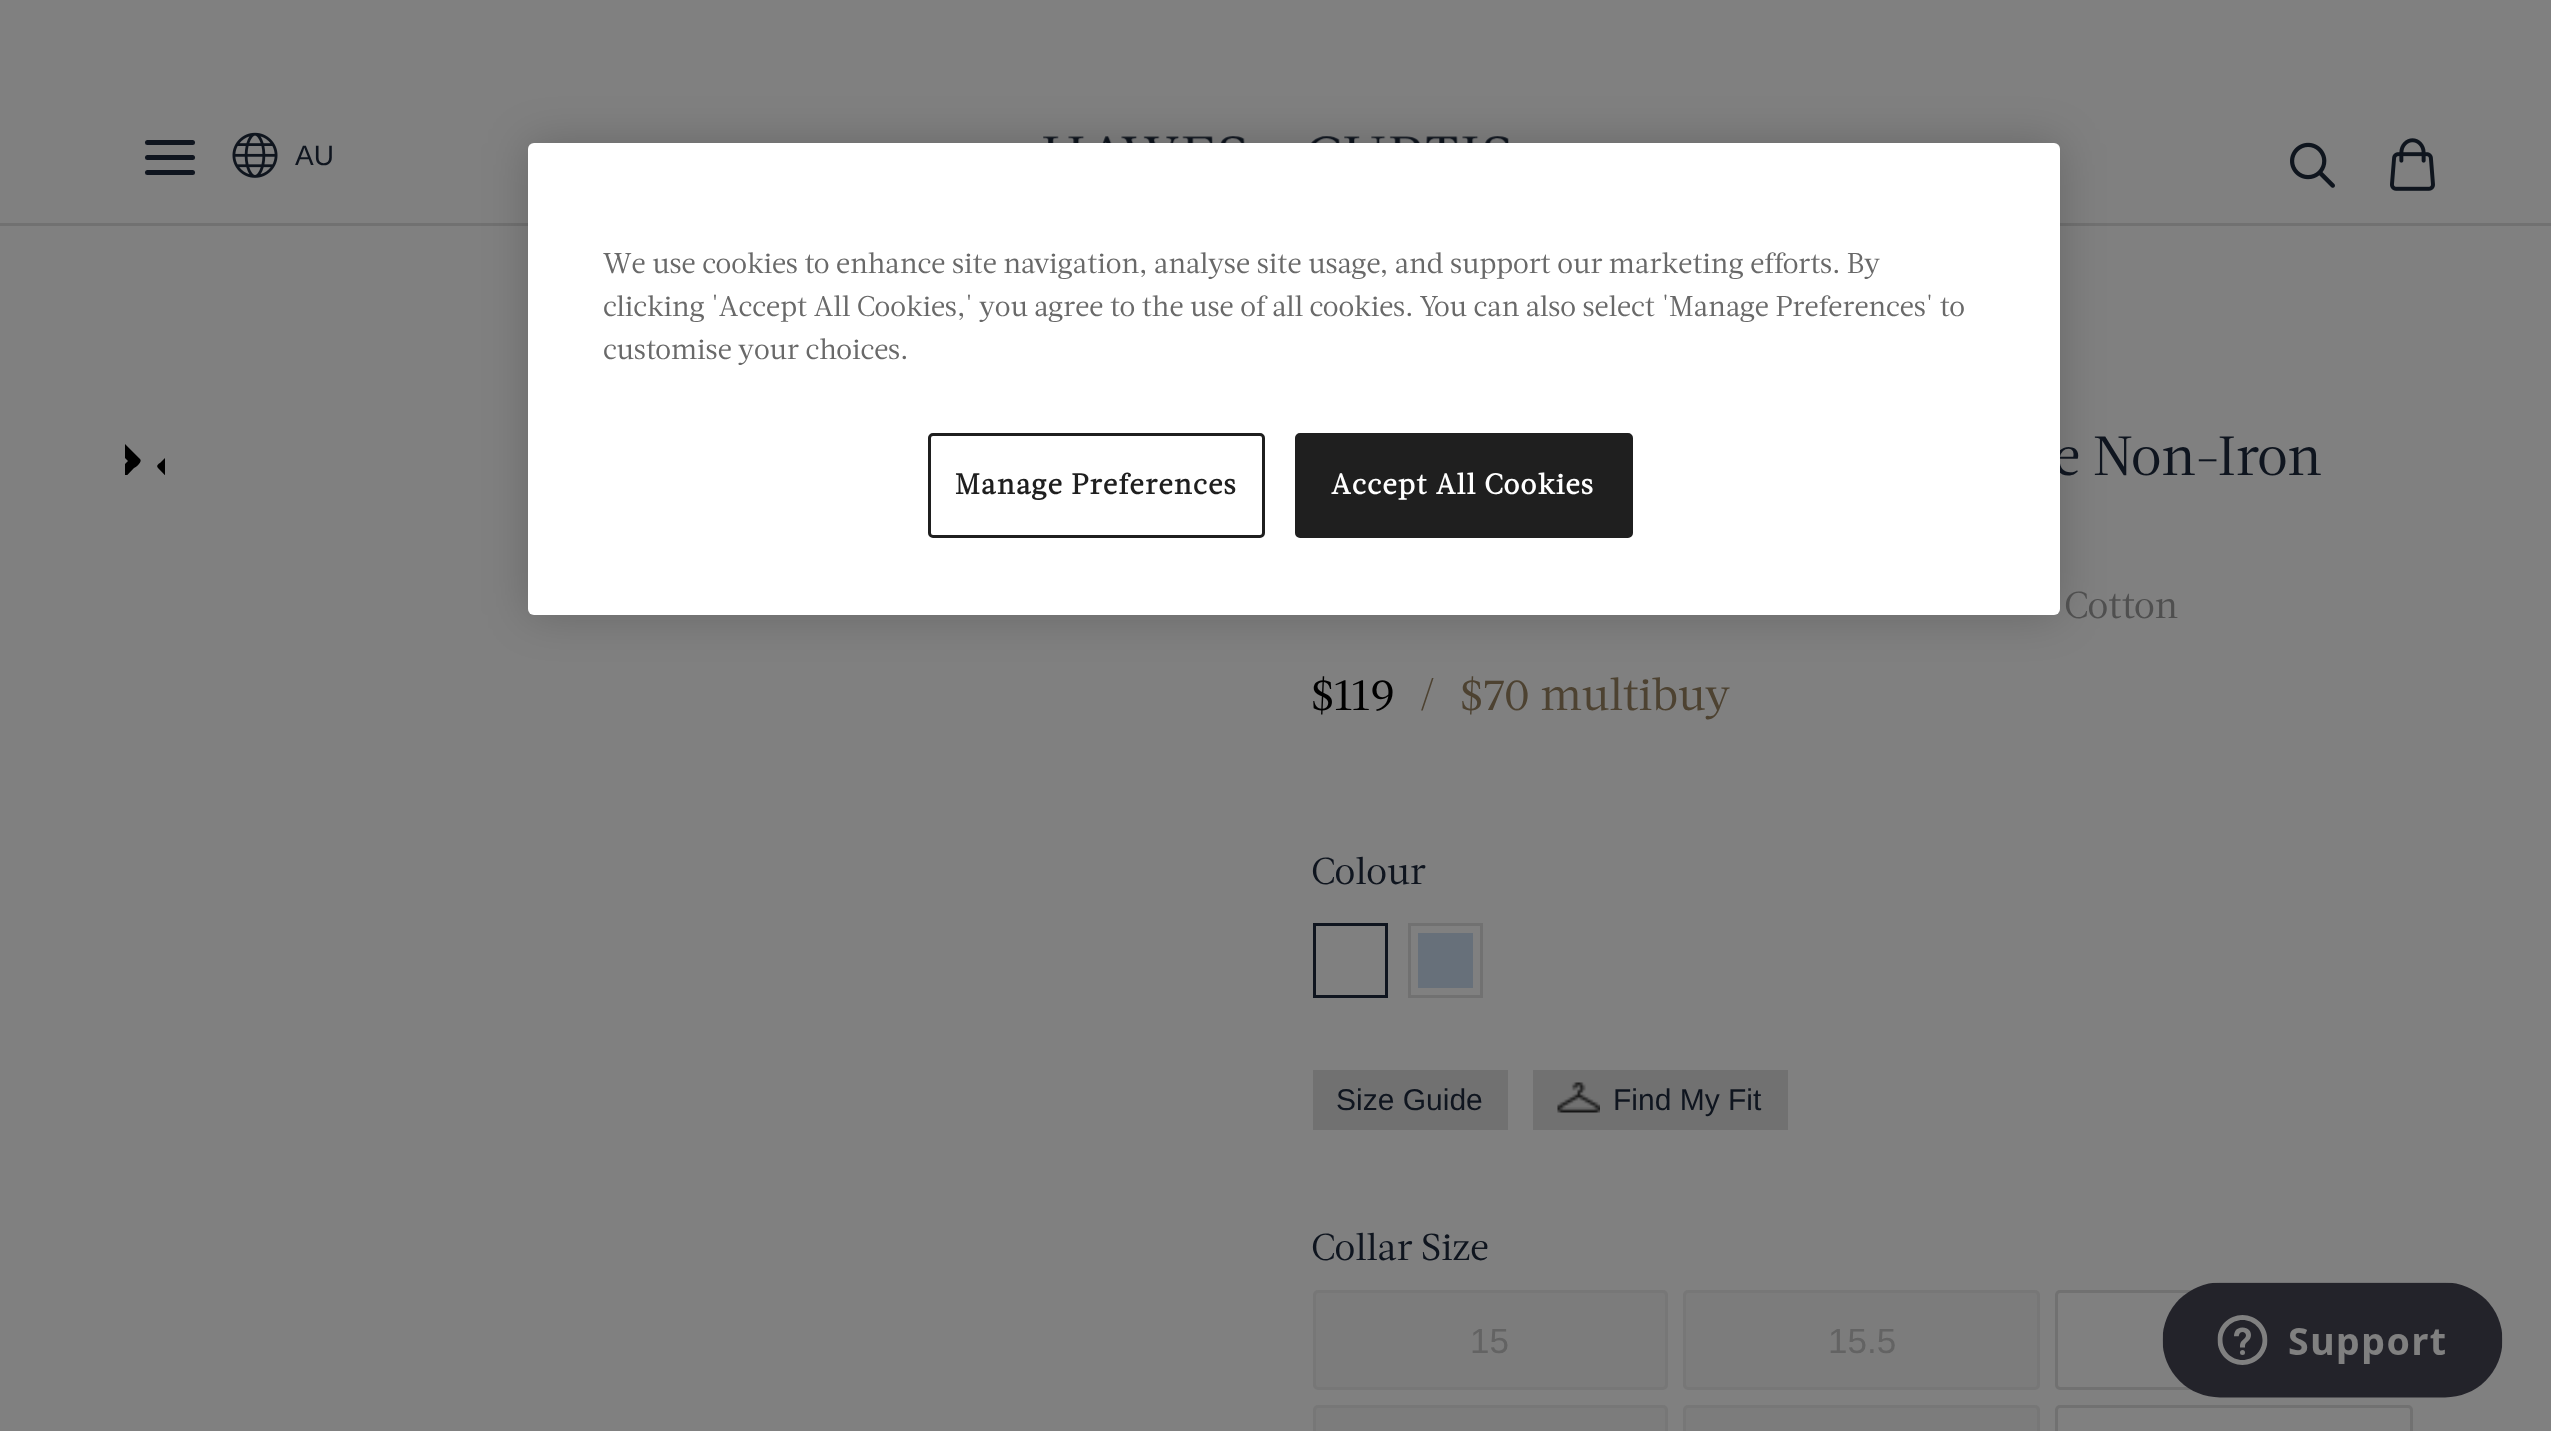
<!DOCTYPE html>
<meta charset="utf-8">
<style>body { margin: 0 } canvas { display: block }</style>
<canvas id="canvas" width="2551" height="1431"></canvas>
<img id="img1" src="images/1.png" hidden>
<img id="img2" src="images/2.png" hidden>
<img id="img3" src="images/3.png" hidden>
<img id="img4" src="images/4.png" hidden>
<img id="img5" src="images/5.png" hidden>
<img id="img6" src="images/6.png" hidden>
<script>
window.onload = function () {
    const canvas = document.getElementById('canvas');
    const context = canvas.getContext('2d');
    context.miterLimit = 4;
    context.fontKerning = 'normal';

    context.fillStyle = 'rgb(128, 128, 128)';
    context.fillRect(0, 0, 2551, 1431);
    context.fillStyle = 'rgb(113, 113, 113)';
    context.fillRect(0, 223, 2551, 3);
    context.fillStyle = 'rgb(15, 21, 31)';
    context.beginPath();
    context.roundRect(145, 140, 50, 5, 2.5);
    context.fill();
    context.beginPath();
    context.roundRect(145, 155, 50, 5, 2.5);
    context.fill();
    context.beginPath();
    context.roundRect(145, 170, 50, 5, 2.5);
    context.fill();
    context.drawImage(document.getElementById('img1'), 232, 132, 46, 46);
    context.drawImage(document.getElementById('img2'), 1043, 136, 466, 7);
    context.drawImage(document.getElementById('img3'), 2290, 142, 45, 46);
    context.drawImage(document.getElementById('img4'), 2390, 138, 45, 53);
    context.save();
    context.beginPath();
    context.rect(125, 435, 40, 40);
    context.clip();
    context.fillStyle = 'rgb(0, 0, 0)';
    context.beginPath();
    context.moveTo(158, 468);
    context.bezierCurveTo(156, 466, 158, 464, 160, 463);
    context.lineTo(164, 459);
    context.lineTo(186, 437);
    context.bezierCurveTo(188, 437, 191, 430, 194, 431);
    context.bezierCurveTo(196, 431, 200, 435, 199, 437);
    context.lineTo(170, 467);
    context.lineTo(194, 491);
    context.lineTo(197, 493);
    context.lineTo(193, 503);
    context.bezierCurveTo(190, 502, 188, 499, 186, 497);
    context.closePath();
    context.moveTo(140, 459);
    context.bezierCurveTo(143, 462, 135, 468, 134, 468);
    context.lineTo(112, 491);
    context.bezierCurveTo(112, 491, 106, 499, 103, 496);
    context.bezierCurveTo(101, 495, 97, 492, 99, 489);
    context.lineTo(128, 461);
    context.lineTo(104, 437);
    context.bezierCurveTo(103, 436, 97, 432, 99, 429);
    context.lineTo(102, 426);
    context.bezierCurveTo(106, 422, 107, 426, 112, 431);
    context.closePath();
    context.fill();
    context.restore();
    context.strokeStyle = 'rgb(15, 21, 31)';
    context.lineWidth = 3;
    context.strokeRect(1314.5, 924.5, 72, 72);
    context.fillStyle = 'rgb(103, 112, 122)';
    context.fillRect(1418, 933, 55, 55);
    context.strokeStyle = 'rgb(113, 113, 113)';
    context.strokeRect(1409.5, 924.5, 72, 72);
    context.fillStyle = 'rgb(113, 113, 113)';
    context.fillRect(1313, 1070, 195, 60);
    context.fillRect(1533, 1070, 255, 60);
    context.drawImage(document.getElementById('img5'), 1557, 1082, 43, 31);
    context.fillStyle = 'rgb(124, 124, 124)';
    context.beginPath();
    context.roundRect(1314.5, 1291.5, 352, 97, 3.5);
    context.fill();
    context.strokeStyle = 'rgb(119, 119, 119)';
    context.stroke();
    context.beginPath();
    context.roundRect(1684.5, 1291.5, 354, 97, 3.5);
    context.fill();
    context.stroke();
    context.beginPath();
    context.roundRect(2056.5, 1291.5, 355, 97, 3.5);
    context.strokeStyle = 'rgb(113, 113, 113)';
    context.stroke();
    context.beginPath();
    context.roundRect(1314.5, 1406.5, 352, 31, 3.5);
    context.fill();
    context.strokeStyle = 'rgb(119, 119, 119)';
    context.stroke();
    context.beginPath();
    context.roundRect(1684.5, 1406.5, 354, 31, 3.5);
    context.fill();
    context.stroke();
    context.beginPath();
    context.roundRect(2056.5, 1406.5, 355, 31, 3.5);
    context.strokeStyle = 'rgb(113, 113, 113)';
    context.stroke();
    context.fillStyle = 'rgba(0, 0, 0, 0.2)';
    context.filter = 'blur(22.5px)';
    context.beginPath();
    context.roundRect(528, 143, 1532, 472, 6);
    context.fill();
    context.filter = 'none';
    context.drawImage(document.getElementById('img6'), 2162, 1282, 341, 116);
    context.font = '28px Liberation Sans';
    context.fillStyle = 'rgb(15, 21, 31)';
    context.fillText('AU', 295, 165);
    context.font = '55px "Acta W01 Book"';
    context.fillText('e Non-Iron', 2053, 475);
    context.font = '37.5px "Acta W01 Book"';
    context.fillStyle = 'rgb(79, 79, 79)';
    context.fillText('Cotton', 2064, 618);
    context.font = '45px "Acta W01 Book"';
    context.fillStyle = 'rgb(0, 0, 0)';
    context.fillText('$119', 1311, 710);
    context.fillStyle = 'rgb(77, 66, 49)';
    context.fillText('/', 1418, 710);
    context.fillText('$70 multibuy', 1460, 710);
    context.font = '37.5px "Acta W01 Book"';
    context.fillStyle = 'rgb(15, 21, 31)';
    context.fillText('Colour', 1311, 884);
    context.font = '30px Liberation Sans';
    context.fillText('Size Guide', 1336, 1110);
    context.fillText('Find My Fit', 1613, 1110);
    context.font = '37.5px "Acta W01 Book"';
    context.fillText('Collar Size', 1311, 1260);
    context.font = '35px Liberation Sans';
    context.fillStyle = 'rgb(99, 99, 99)';
    context.fillText('15', 1470, 1353);
    context.fillText('15.5', 1828, 1353);
    context.fillStyle = 'rgb(255, 255, 255)';
    context.beginPath();
    context.roundRect(528, 143, 1532, 472, 6);
    context.fill();
    context.font = '28.45px "Acta W01 Book"';
    context.fillStyle = 'rgb(105, 105, 105)';
    context.fillText('We use cookies to enhance site navigation, analyse site usage, and support our marketing efforts. By', 603, 273);
    context.fillText('clicking \'Accept All Cookies,\' you agree to the use of all cookies. You can also select \'Manage Preferences\' to', 603, 316);
    context.fillText('customise your choices.', 603, 359);
    context.beginPath();
    context.roundRect(929.5, 434.5, 334, 102, 3.5);
    context.strokeStyle = 'rgb(31, 31, 31)';
    context.stroke();
    context.letterSpacing = '1.4px';
    context.font = 'bold 28.45px "Acta W01 Book"';
    context.fillStyle = 'rgb(31, 31, 31)';
    context.fillText('Manage Preferences', 955, 494);
    context.beginPath();
    context.roundRect(1296.5, 434.5, 335, 102, 3.5);
    context.fill();
    context.stroke();
    context.fillStyle = 'rgb(255, 255, 255)';
    context.fillText('Accept All Cookies', 1331, 494);
};
</script>
